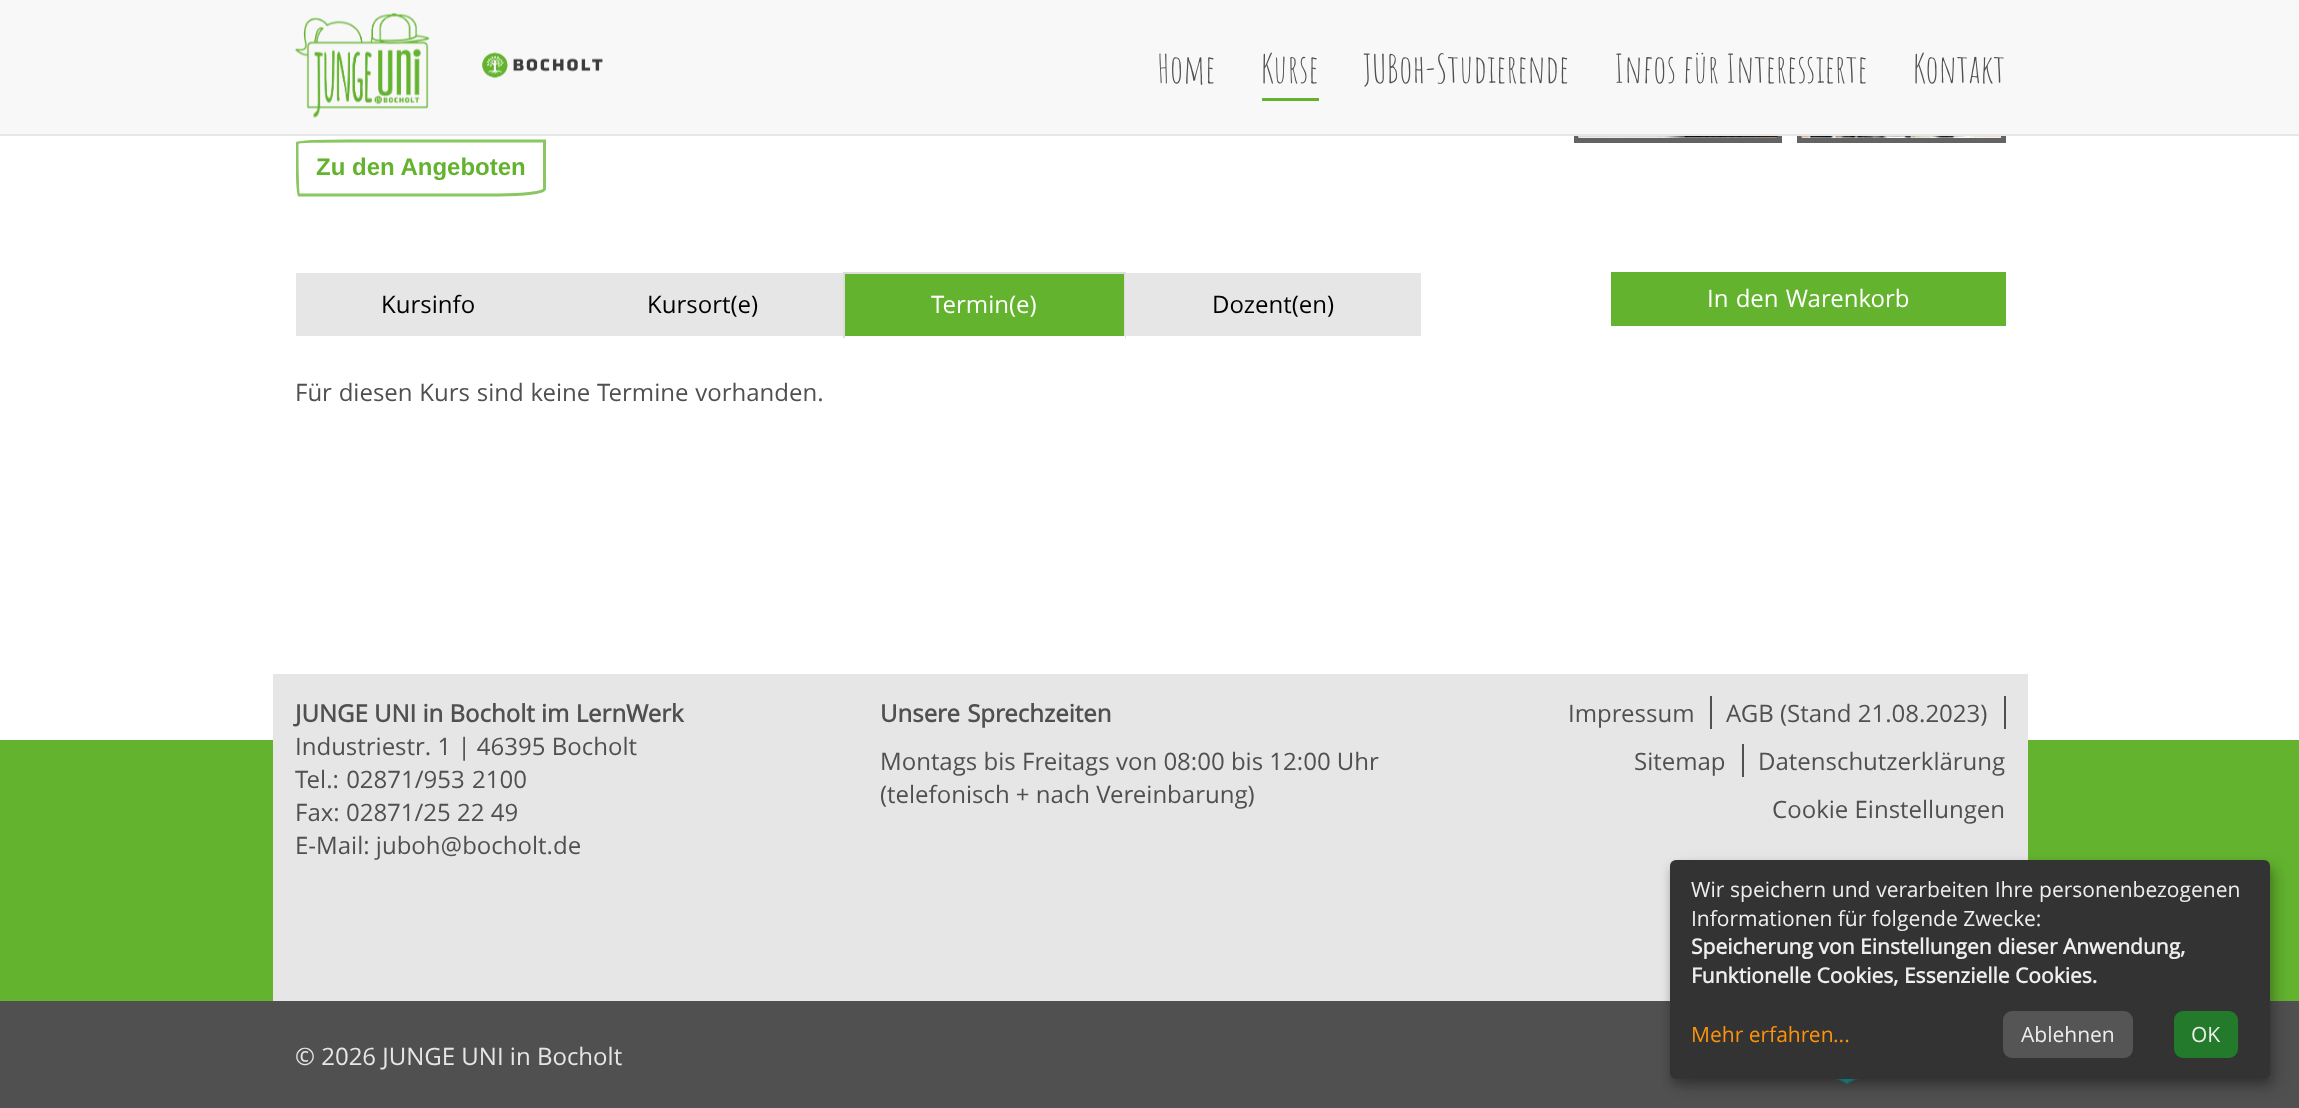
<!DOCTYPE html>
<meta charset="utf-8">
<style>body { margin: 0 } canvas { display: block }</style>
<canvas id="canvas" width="2299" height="1108"></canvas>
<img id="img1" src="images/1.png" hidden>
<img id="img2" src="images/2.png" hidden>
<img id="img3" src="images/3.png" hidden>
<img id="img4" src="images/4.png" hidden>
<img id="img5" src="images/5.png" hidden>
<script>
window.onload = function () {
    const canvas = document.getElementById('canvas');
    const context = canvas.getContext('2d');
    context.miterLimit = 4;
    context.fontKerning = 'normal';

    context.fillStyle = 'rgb(255, 255, 255)';
    context.fillRect(0, 0, 2299, 1108);
    context.strokeStyle = 'rgb(99, 99, 99)';
    context.lineWidth = 5;
    context.strokeRect(1576.5, -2.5, 203, 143);
    context.strokeRect(1799.5, -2.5, 204, 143);
    context.fillStyle = 'rgb(248, 248, 248)';
    context.fillRect(0, 0, 2299, 134);
    context.fillStyle = 'rgb(231, 231, 231)';
    context.fillRect(0, 134, 2299, 2);
    context.drawImage(document.getElementById('img1'), 295, 13, 134, 105);
    context.drawImage(document.getElementById('img2'), 482, 52, 121, 26);
    context.fillStyle = 'rgb(99, 179, 47)';
    context.fillRect(1262, 98, 57, 3);
    context.drawImage(document.getElementById('img3'), 1578, 136, 200, 2);
    context.drawImage(document.getElementById('img4'), 1801, 136, 200, 2);
    context.save();
    context.beginPath();
    context.rect(296, 0, 1710, 212);
    context.clip();
    context.beginPath();
    context.moveTo(349.5, 141);
    context.lineTo(544.5, 141);
    context.lineTo(544.5, 189);
    context.bezierCurveTo(544.5, 192.5, 524, 195, 498.5, 195);
    context.lineTo(298.5, 195);
    context.bezierCurveTo(297.5, 195, 297, 171.5, 297, 142.5);
    context.bezierCurveTo(297, 141.5, 320.5, 141, 349.5, 141);
    context.closePath();
    context.strokeStyle = 'rgb(138, 198, 98)';
    context.lineWidth = 3;
    context.stroke();
    context.restore();
    context.fillStyle = 'rgb(230, 230, 230)';
    context.fillRect(296, 273, 547, 63);
    context.fillStyle = 'rgb(99, 179, 47)';
    context.fillRect(845, 274, 279, 62);
    context.fillStyle = 'rgb(221, 221, 221)';
    context.fillRect(843, 272, 282, 2);
    context.fillRect(1124, 272, 2, 66);
    context.fillStyle = 'rgb(255, 255, 255)';
    context.fillRect(1124, 336, 1, 2);
    context.fillStyle = 'rgb(221, 221, 221)';
    context.fillRect(843, 272, 2, 66);
    context.fillStyle = 'rgb(230, 230, 230)';
    context.fillRect(1125, 273, 296, 63);
    context.fillStyle = 'rgb(99, 179, 47)';
    context.fillRect(1611, 272, 395, 54);
    context.fillRect(0, 740, 2299, 261);
    context.fillStyle = 'rgb(230, 230, 230)';
    context.fillRect(273, 674, 1755, 327);
    context.fillStyle = 'rgb(80, 80, 80)';
    context.fillRect(1710, 696, 2, 33);
    context.fillRect(2004, 696, 2, 33);
    context.fillRect(1742, 744, 2, 33);
    context.fillRect(0, 1001, 2299, 107);
    context.drawImage(document.getElementById('img5'), 1835, 1079, 24, 6);
    context.fillStyle = 'rgba(0, 0, 0, 0.19)';
    context.filter = 'blur(7.5px)';
    context.beginPath();
    context.roundRect(1677, 867, 600, 219, 6);
    context.fill();
    context.filter = 'none';
    context.fillStyle = 'rgba(0, 0, 0, 0.2)';
    context.filter = 'blur(4.5px)';
    context.beginPath();
    context.roundRect(1670, 866, 600, 219, 6);
    context.fill();
    context.filter = 'none';
    context.fillStyle = 'rgb(51, 51, 51)';
    context.beginPath();
    context.roundRect(1670, 860, 600, 219, 6);
    context.fill();
    context.fillStyle = 'rgb(85, 85, 85)';
    context.beginPath();
    context.roundRect(2003, 1011, 130, 47, 9);
    context.fill();
    context.fillStyle = 'rgb(34, 122, 42)';
    context.beginPath();
    context.roundRect(2174, 1011, 64, 47, 9);
    context.fill();
    context.font = '39px Amatic SC';
    context.fillStyle = 'rgb(80, 80, 80)';
    context.fillText('Home', 1157, 83);
    context.fillText('Kurse', 1261, 83);
    context.fillText('JUBoh-Studierende', 1363, 83);
    context.fillText('Infos für Interessierte', 1614, 83);
    context.fillText('Kontakt', 1913, 83);
    context.font = 'bold 24px Liberation Sans';
    context.fillStyle = 'rgb(99, 179, 46)';
    context.fillText('Zu den Angeboten', 316, 175);
    context.font = '24px Open Sans';
    context.fillStyle = 'rgb(0, 0, 0)';
    context.fillText('Kursinfo', 381, 313);
    context.fillText('Kursort(e)', 647, 313);
    context.fillStyle = 'rgb(255, 255, 255)';
    context.fillText('Termin(e)', 931, 313);
    context.fillStyle = 'rgb(0, 0, 0)';
    context.fillText('Dozent(en)', 1212, 313);
    context.wordSpacing = '0.5px';
    context.fillStyle = 'rgb(80, 80, 80)';
    context.fillText('Für diesen Kurs sind keine Termine vorhanden.', 295, 401);
    context.wordSpacing = '1px';
    context.fillStyle = 'rgb(255, 255, 255)';
    context.fillText('In den Warenkorb', 1707, 307);
    context.wordSpacing = '0px';
    context.font = 'bold 24px Open Sans';
    context.fillStyle = 'rgb(80, 80, 80)';
    context.fillText('JUNGE UNI in Bocholt im LernWerk', 295, 722);
    context.font = '24px Open Sans';
    context.fillText('Industriestr. 1 | 46395 Bocholt', 295, 755);
    context.wordSpacing = '1px';
    context.fillText('Tel.: 02871/953 2100', 295, 788);
    context.wordSpacing = '0px';
    context.fillText('Fax: 02871/25 22 49', 295, 821);
    context.fillText('E-Mail: juboh@bocholt.de', 295, 854);
    context.wordSpacing = '1px';
    context.font = 'bold 24px Open Sans';
    context.fillText('Unsere Sprechzeiten', 880, 722);
    context.wordSpacing = '0px';
    context.font = '24px Open Sans';
    context.fillText('Montags bis Freitags von 08:00 bis 12:00 Uhr', 880, 770);
    context.fillText('(telefonisch + nach Vereinbarung)', 880, 803);
    context.fillText('Impressum', 1568, 722);
    context.fillText('AGB (Stand 21.08.2023)', 1726, 722);
    context.fillText('Sitemap', 1634, 770);
    context.fillText('Datenschutzerklärung', 1758, 770);
    context.fillText('Cookie Einstellungen', 1772, 818);
    context.wordSpacing = '0.25px';
    context.font = '21px Open Sans';
    context.fillStyle = 'rgb(238, 238, 238)';
    context.fillText('Wir speichern und verarbeiten Ihre personenbezogenen', 1691, 897);
    context.wordSpacing = '0px';
    context.fillText('Informationen für folgende Zwecke:', 1691, 926);
    context.font = 'bold 21px Open Sans';
    context.fillText('Speicherung von Einstellungen dieser Anwendung,', 1691, 954);
    context.fillText('Funktionelle Cookies, Essenzielle Cookies.', 1691, 983);
    context.font = '21px Open Sans';
    context.fillStyle = 'rgb(253, 147, 12)';
    context.fillText('Mehr erfahren', 1691, 1042);
    context.fillText('...', 1833, 1042);
    context.fillStyle = 'rgb(238, 238, 238)';
    context.fillText('Ablehnen', 2021, 1042);
    context.fillText('OK', 2191, 1042);
    context.font = '24px Open Sans';
    context.fillStyle = 'rgb(230, 230, 230)';
    context.fillText('© 2026 JUNGE UNI in Bocholt', 295, 1065);
};
</script>
